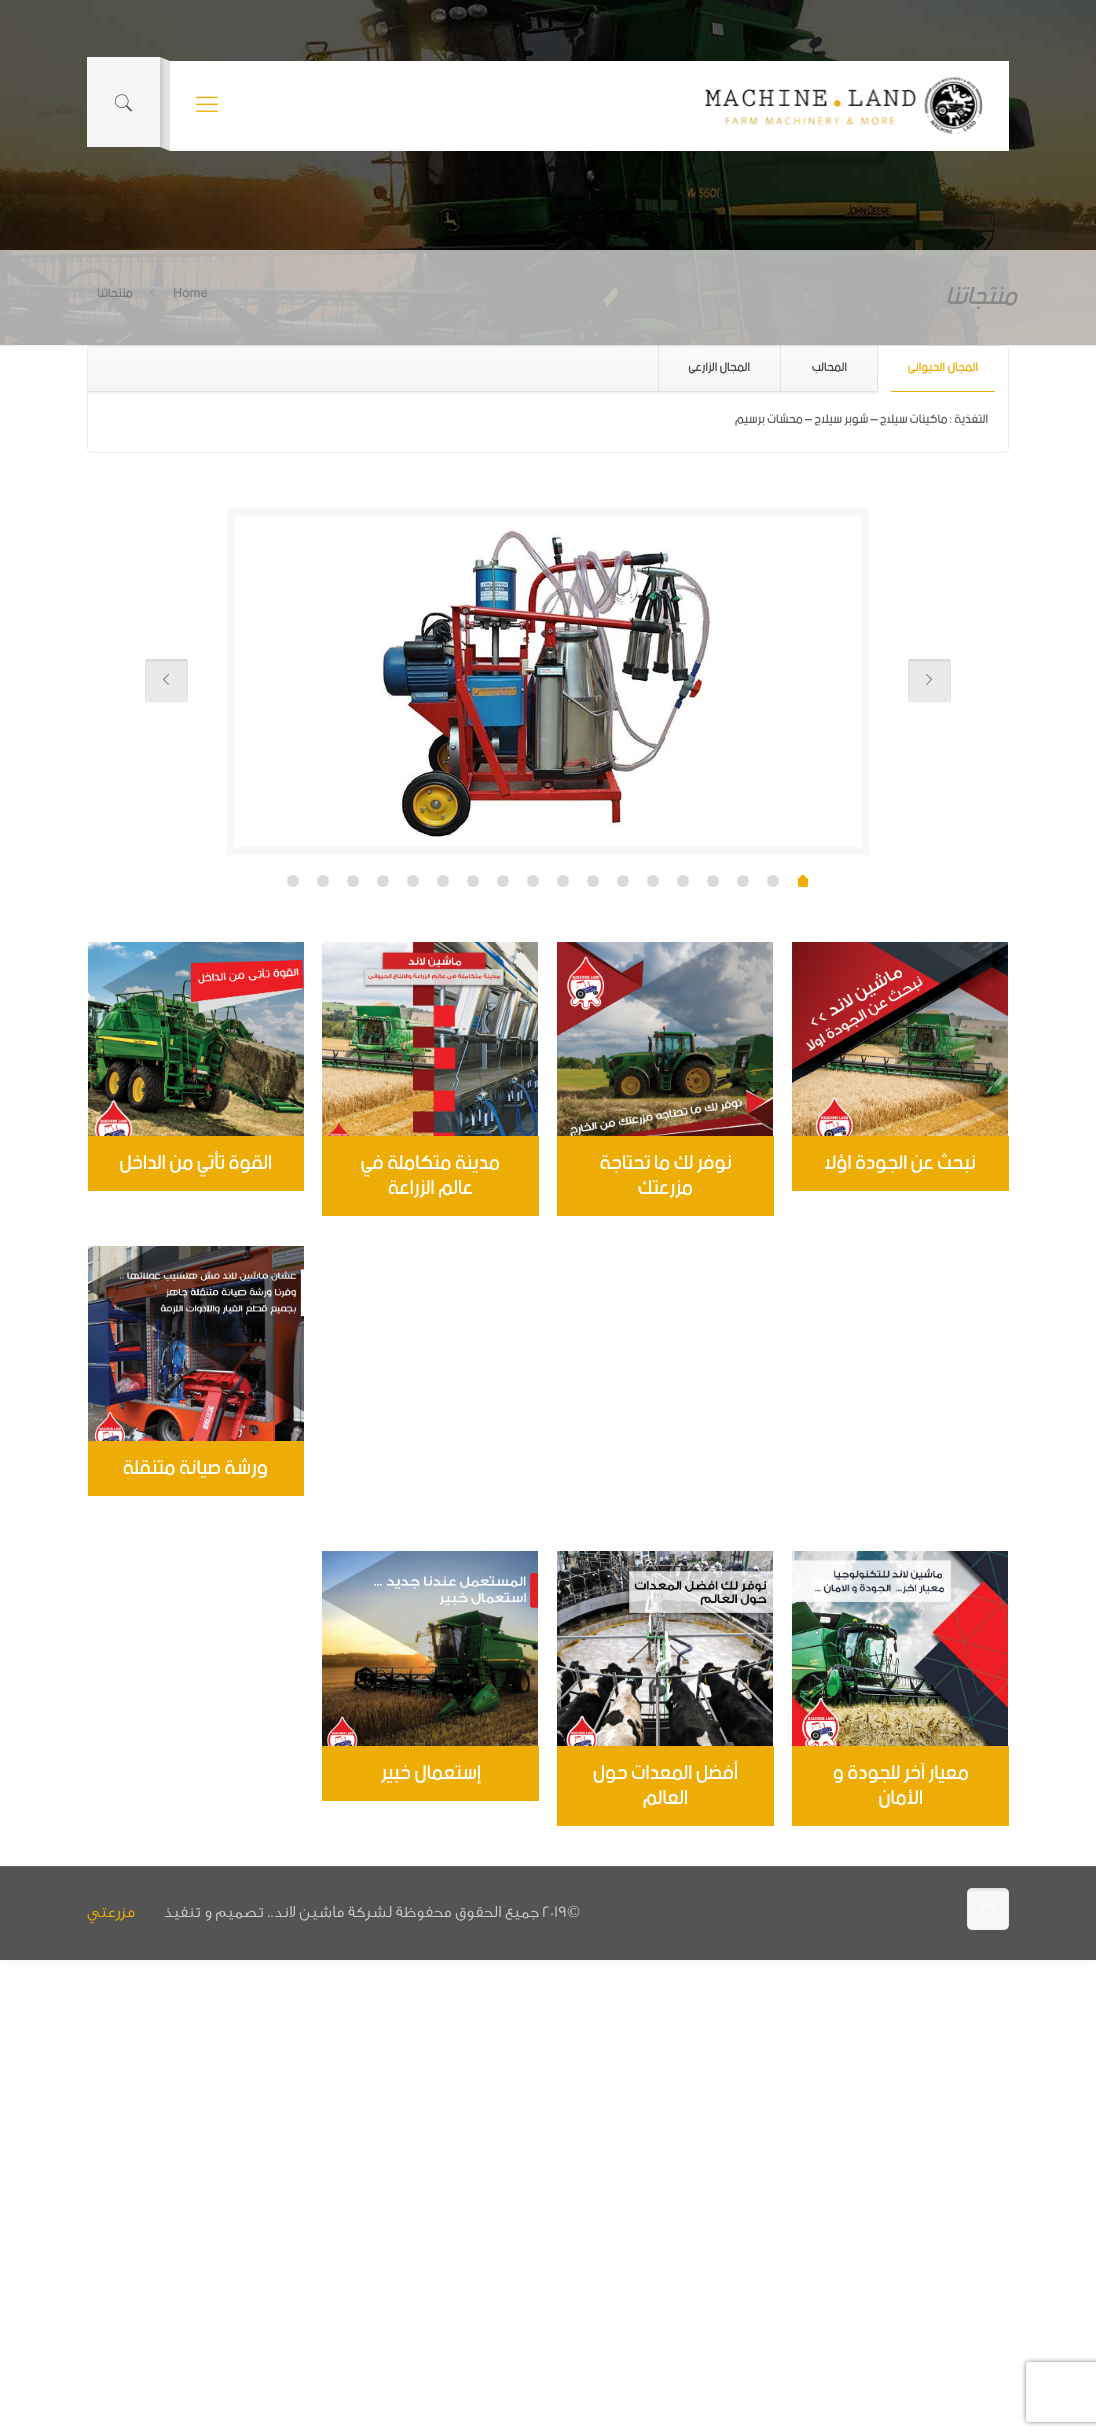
<!DOCTYPE html>
<meta charset="utf-8">
<style>body { margin: 0 } canvas { display: block }</style>
<canvas id="canvas" width="1096" height="2436"></canvas>
<img id="img1" src="images/1.png" hidden>
<img id="img2" src="images/2.png" hidden>
<img id="img3" src="images/3.png" hidden>
<img id="img4" src="images/4.png" hidden>
<img id="img5" src="images/5.png" hidden>
<img id="img6" src="images/6.png" hidden>
<img id="img7" src="images/7.png" hidden>
<img id="img8" src="images/8.png" hidden>
<img id="img9" src="images/9.png" hidden>
<img id="img10" src="images/10.png" hidden>
<img id="img11" src="images/11.png" hidden>
<img id="img12" src="images/12.png" hidden>
<img id="img13" src="images/13.png" hidden>
<img id="img14" src="images/14.png" hidden>
<img id="img15" src="images/15.png" hidden>
<img id="img16" src="images/16.png" hidden>
<img id="img17" src="images/17.png" hidden>
<img id="img18" src="images/18.png" hidden>
<img id="img19" src="images/19.png" hidden>
<img id="img20" src="images/20.png" hidden>
<img id="img21" src="images/21.png" hidden>
<script>
window.onload = function () {
    const canvas = document.getElementById('canvas');
    const context = canvas.getContext('2d');
    context.miterLimit = 4;
    context.fontKerning = 'normal';

    context.fillStyle = 'rgb(255, 255, 255)';
    context.fillRect(0, 0, 1096, 2436);
    context.fillStyle = 'rgba(0, 0, 0, 0.06)';
    context.filter = 'blur(7.5px)';
    context.beginPath();
    context.rect(0, 0, 1096, 1960);
    context.fill();
    context.filter = 'none';
    context.fillStyle = 'rgb(255, 255, 255)';
    context.fillRect(0, 345, 1096, 1521);
    context.drawImage(document.getElementById('img1'), 0, 0, 1096, 345);
    context.fillRect(170, 61, 839, 90);
    context.drawImage(document.getElementById('img2'), 705, 77, 278, 58);
    context.drawImage(document.getElementById('img3'), 196, 96, 22, 16);
    context.fillStyle = 'rgb(245, 245, 245)';
    context.fillRect(87, 57, 73, 90);
    context.fillStyle = 'rgb(227, 227, 227)';
    context.beginPath();
    context.moveTo(160, 57);
    context.lineTo(170, 61);
    context.lineTo(170, 151);
    context.lineTo(160, 147);
    context.closePath();
    context.fill();
    context.drawImage(document.getElementById('img4'), 160, 57, 5, 91);
    context.drawImage(document.getElementById('img5'), 114, 94, 19, 18);
    context.fillStyle = 'rgba(247, 247, 247, 0.7)';
    context.fillRect(0, 250, 1096, 95);
    context.drawImage(document.getElementById('img6'), 150, 288, 5, 8);
    context.drawImage(document.getElementById('img7'), 0, 345, 1096, 2);
    context.beginPath();
    context.roundRect(87.5, 345.5, 921, 107, 4.5);
    context.strokeStyle = 'rgba(0, 0, 0, 0.08)';
    context.stroke();
    context.drawImage(document.getElementById('img8'), 88, 347, 920, 44);
    context.fillStyle = 'rgb(226, 226, 226)';
    context.fillRect(88, 391, 790, 1);
    context.fillStyle = 'rgba(0, 0, 0, 0.08)';
    context.fillRect(877, 346, 1, 45);
    context.fillStyle = 'rgb(255, 255, 255)';
    context.beginPath();
    context.roundRect(878, 346, 130, 45, [0, 4, 0, 0]);
    context.fill();
    context.fillStyle = 'rgb(237, 173, 5)';
    context.fillRect(891, 391, 104, 1);
    context.fillStyle = 'rgba(0, 0, 0, 0.08)';
    context.fillRect(780, 346, 1, 45);
    context.fillRect(658, 346, 1, 45);
    context.fillStyle = 'rgb(255, 255, 255)';
    context.beginPath();
    context.roundRect(88, 392, 920, 60, [0, 0, 4, 4]);
    context.fill();
    context.drawImage(document.getElementById('img9'), 88, 392, 790, 2);
    context.strokeStyle = 'rgb(248, 248, 248)';
    context.lineWidth = 8;
    context.strokeRect(231, 512, 634, 339);
    context.fillStyle = 'rgb(247, 247, 247)';
    context.beginPath();
    context.roundRect(908, 659, 43, 43, 5);
    context.fill();
    context.fillStyle = 'rgba(0, 0, 0, 0.05)';
    context.fillRect(909, 659, 41, 3);
    context.strokeStyle = 'rgba(0, 0, 0, 0.03)';
    context.lineWidth = 1;
    context.strokeRect(908.5, 659.5, 42, 42);
    context.fillRect(908, 659, 43, 43);
    context.drawImage(document.getElementById('img10'), 926, 673, 6, 12);
    context.drawImage(document.getElementById('img11'), 380, 527, 335, 312);
    context.fillStyle = 'rgb(247, 247, 247)';
    context.beginPath();
    context.roundRect(145, 659, 43, 43, 5);
    context.fill();
    context.fillStyle = 'rgba(0, 0, 0, 0.05)';
    context.fillRect(146, 659, 41, 3);
    context.strokeRect(145.5, 659.5, 42, 42);
    context.fillRect(145, 659, 43, 43);
    context.drawImage(document.getElementById('img12'), 163, 673, 6, 12);
    context.fillStyle = 'rgb(237, 173, 5)';
    context.beginPath();
    context.roundRect(798, 879, 10, 8, 2);
    context.fill();
    context.beginPath();
    context.moveTo(803.5, 875);
    context.lineTo(807.5, 878.5);
    context.bezierCurveTo(809.5, 880.5, 807.5, 881, 806, 882.5);
    context.bezierCurveTo(804, 884.5, 803.5, 886, 801.5, 884);
    context.lineTo(798, 880.5);
    context.bezierCurveTo(797, 879.5, 799.5, 877.5, 800, 877);
    context.bezierCurveTo(801, 876.5, 802.5, 873.5, 803.5, 875);
    context.closePath();
    context.fill();
    context.fillStyle = 'rgb(217, 217, 217)';
    context.beginPath();
    context.arc(773, 881, 6, 0, 2 * Math.PI);
    context.fill();
    context.beginPath();
    context.arc(743, 881, 6, 0, 2 * Math.PI);
    context.fill();
    context.beginPath();
    context.arc(713, 881, 6, 0, 2 * Math.PI);
    context.fill();
    context.beginPath();
    context.arc(683, 881, 6, 0, 2 * Math.PI);
    context.fill();
    context.beginPath();
    context.arc(653, 881, 6, 0, 2 * Math.PI);
    context.fill();
    context.beginPath();
    context.arc(623, 881, 6, 0, 2 * Math.PI);
    context.fill();
    context.beginPath();
    context.arc(593, 881, 6, 0, 2 * Math.PI);
    context.fill();
    context.beginPath();
    context.arc(563, 881, 6, 0, 2 * Math.PI);
    context.fill();
    context.beginPath();
    context.arc(533, 881, 6, 0, 2 * Math.PI);
    context.fill();
    context.beginPath();
    context.arc(503, 881, 6, 0, 2 * Math.PI);
    context.fill();
    context.beginPath();
    context.arc(473, 881, 6, 0, 2 * Math.PI);
    context.fill();
    context.beginPath();
    context.arc(443, 881, 6, 0, 2 * Math.PI);
    context.fill();
    context.beginPath();
    context.arc(413, 881, 6, 0, 2 * Math.PI);
    context.fill();
    context.beginPath();
    context.arc(383, 881, 6, 0, 2 * Math.PI);
    context.fill();
    context.beginPath();
    context.arc(353, 881, 6, 0, 2 * Math.PI);
    context.fill();
    context.beginPath();
    context.arc(323, 881, 6, 0, 2 * Math.PI);
    context.fill();
    context.beginPath();
    context.arc(293, 881, 6, 0, 2 * Math.PI);
    context.fill();
    context.drawImage(document.getElementById('img13'), 792, 942, 216, 194);
    context.fillStyle = 'rgb(237, 173, 5)';
    context.fillRect(792, 1136, 217, 55);
    context.drawImage(document.getElementById('img14'), 557, 942, 216, 194);
    context.fillRect(557, 1136, 217, 80);
    context.drawImage(document.getElementById('img15'), 322, 942, 216, 194);
    context.fillRect(322, 1136, 217, 80);
    context.drawImage(document.getElementById('img16'), 88, 942, 216, 194);
    context.fillRect(88, 1136, 216, 55);
    context.drawImage(document.getElementById('img17'), 88, 1246, 216, 195);
    context.fillRect(88, 1441, 216, 55);
    context.drawImage(document.getElementById('img18'), 792, 1551, 216, 195);
    context.fillRect(792, 1746, 217, 80);
    context.drawImage(document.getElementById('img19'), 557, 1551, 216, 195);
    context.fillRect(557, 1746, 217, 80);
    context.drawImage(document.getElementById('img20'), 322, 1551, 216, 195);
    context.fillRect(322, 1746, 217, 55);
    context.fillStyle = 'rgb(84, 84, 84)';
    context.fillRect(0, 1867, 1096, 93);
    context.fillStyle = 'rgb(101, 101, 101)';
    context.fillRect(0, 1866, 1096, 1);
    context.fillStyle = 'rgb(247, 247, 247)';
    context.beginPath();
    context.roundRect(967, 1888, 42, 42, 5);
    context.fill();
    context.fillStyle = 'rgba(0, 0, 0, 0.05)';
    context.fillRect(968, 1888, 40, 3);
    context.strokeRect(967.5, 1888.5, 41, 41);
    context.drawImage(document.getElementById('img21'), 979, 1902, 17, 9);
    context.save();
    context.beginPath();
    context.moveTo(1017, 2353);
    context.lineTo(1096, 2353);
    context.lineTo(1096, 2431);
    context.lineTo(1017, 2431);
    context.closePath();
    context.moveTo(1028, 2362);
    context.lineTo(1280, 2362);
    context.bezierCurveTo(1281, 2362, 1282, 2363, 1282, 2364);
    context.lineTo(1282, 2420);
    context.bezierCurveTo(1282, 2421, 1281, 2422, 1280, 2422);
    context.lineTo(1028, 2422);
    context.bezierCurveTo(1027, 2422, 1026, 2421, 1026, 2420);
    context.lineTo(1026, 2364);
    context.bezierCurveTo(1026, 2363, 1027, 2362, 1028, 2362);
    context.closePath();
    context.clip('evenodd');
    context.fillStyle = 'rgb(128, 128, 128)';
    context.filter = 'blur(2.5px)';
    context.beginPath();
    context.roundRect(1026, 2362, 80, 60, 2);
    context.fill();
    context.filter = 'none';
    context.restore();
    context.letterSpacing = '1px';
    context.direction = 'rtl';
    context.font = 'italic 26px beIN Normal';
    context.fillStyle = 'rgb(136, 136, 136)';
    context.fillText('منتجاتنا', 1017, 304);
    context.letterSpacing = '0px';
    context.direction = 'ltr';
    context.font = '13px beIN Normal';
    context.fillStyle = 'rgb(123, 123, 123)';
    context.fillText('Home', 173, 297);
    context.direction = 'rtl';
    context.fillText('منتجاتنا', 133, 297);
    context.fillStyle = 'rgb(237, 173, 5)';
    context.fillText('المجال', 978, 371);
    context.fillText('الحيوانى', 945, 371);
    context.fillStyle = 'rgb(68, 68, 68)';
    context.fillText('المحالب', 847, 371);
    context.fillText('المجال الزارعى', 750, 371);
    context.fillStyle = 'rgb(98, 98, 98)';
    context.fillText('التغذية : ماكينات سيلاج – شوبر سيلاج – محشات برسيم', 988, 423);
    context.font = '21px beIN Normal';
    context.fillStyle = 'rgb(255, 255, 255)';
    context.fillText('نبحث عن الجودة اؤلا', 976, 1169);
    context.fillText('نوفر لك ما تحتاجة', 732, 1169);
    context.fillText('مزرعتك', 693, 1194);
    context.fillText('مدينة متكاملة في', 500, 1169);
    context.fillText('عالم الزراعة', 473, 1194);
    context.fillText('القوة تأتي من الداخل', 272, 1169);
    context.fillText('ورشة صيانة متنقلة', 268, 1474);
    context.fillText('معيار آخر للجودة و', 969, 1779);
    context.fillText('الأمان', 923, 1804);
    context.fillText('أفضل المعدات حول', 738, 1779);
    context.fillText('العالم', 688, 1804);
    context.fillText('إستعمال خبير', 481, 1779);
    context.direction = 'ltr';
    context.font = '17px Liberation Serif';
    context.fillStyle = 'rgb(204, 204, 204)';
    context.fillText('©', 567, 1917);
    context.font = '300 17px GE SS';
    context.fillText('2019', 542, 1917);
    context.direction = 'rtl';
    context.fillText('جميع الحقوق محفوظة لشركة ماشين لاند.. تصميم و تنفيذ', 539, 1917);
    context.fillStyle = 'rgb(237, 173, 5)';
    context.fillText('مزرعتي', 135, 1917);
};
</script>
